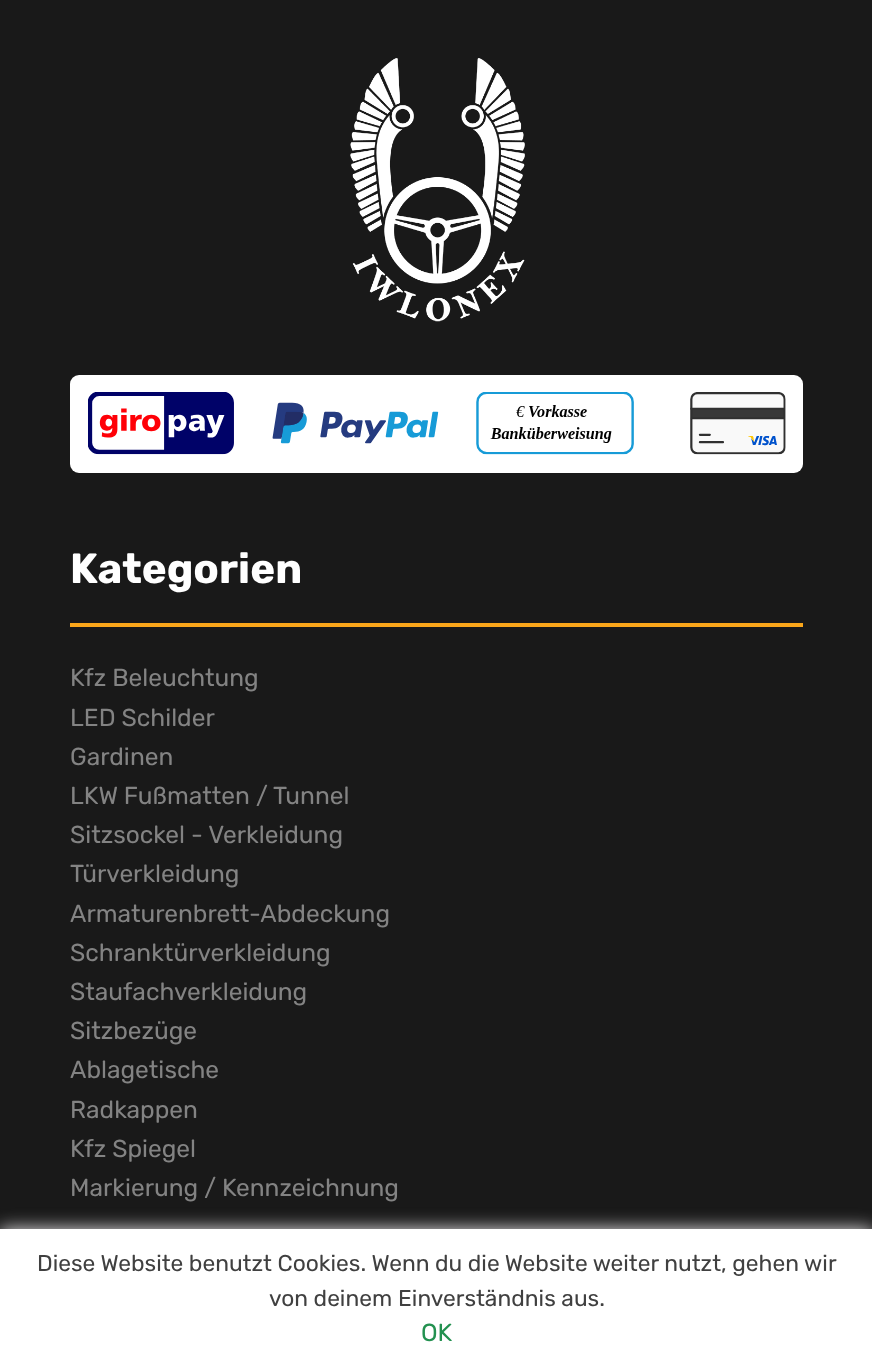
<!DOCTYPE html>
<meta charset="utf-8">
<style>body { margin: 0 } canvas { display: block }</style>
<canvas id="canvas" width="872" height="1367"></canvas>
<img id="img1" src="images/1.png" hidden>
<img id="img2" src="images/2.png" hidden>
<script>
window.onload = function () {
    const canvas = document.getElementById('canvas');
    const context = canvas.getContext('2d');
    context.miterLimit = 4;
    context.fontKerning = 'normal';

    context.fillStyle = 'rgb(25, 25, 25)';
    context.fillRect(0, 0, 872, 1367);
    context.drawImage(document.getElementById('img1'), 350, 58, 175, 264);
    context.fillStyle = 'rgb(255, 255, 255)';
    context.beginPath();
    context.roundRect(70, 375, 733, 98, 9);
    context.fill();
    context.drawImage(document.getElementById('img2'), 88, 392, 698, 63);
    context.fillStyle = 'rgb(250, 166, 26)';
    context.fillRect(70, 623, 733, 4);
    context.fillStyle = 'rgb(235, 233, 235)';
    context.filter = 'blur(9px)';
    context.beginPath();
    context.rect(0, 1229, 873, 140);
    context.fill();
    context.filter = 'none';
    context.fillStyle = 'rgb(255, 255, 255)';
    context.fillRect(0, 1229, 872, 138);
    context.font = '300 42px Rubik';
    context.fillText('Kategorien', 70, 583);
    context.font = '300 24.5px "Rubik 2"';
    context.fillStyle = 'rgb(131, 131, 131)';
    context.fillText('Kfz Beleuchtung', 70, 686);
    context.fillText('LED Schilder', 70, 726);
    context.fillText('Gardinen', 70, 765);
    context.fillText('LKW Fußmatten / Tunnel', 70, 804);
    context.fillText('Sitzsockel - Verkleidung', 70, 843);
    context.fillText('Türverkleidung', 70, 882);
    context.fillText('Armaturenbrett-Abdeckung', 70, 922);
    context.fillText('Schranktürverkleidung', 70, 961);
    context.fillText('Staufachverkleidung', 70, 1000);
    context.fillText('Sitzbezüge', 70, 1039);
    context.fillText('Ablagetische', 70, 1078);
    context.fillText('Radkappen', 70, 1118);
    context.fillText('Kfz Spiegel', 70, 1157);
    context.fillText('Markierung / Kennzeichnung', 70, 1196);
    context.font = '300 22.75px "Rubik 2"';
    context.fillStyle = 'rgb(64, 64, 64)';
    context.fillText('Diese Website benutzt Cookies. Wenn du die Website weiter nutzt, gehen wir', 37, 1271);
    context.fillText('von deinem Einverständnis aus.', 269, 1306);
    context.font = '300 24.5px "Rubik 2"';
    context.fillStyle = 'rgb(35, 145, 80)';
    context.fillText('OK', 421, 1341);
};
</script>
